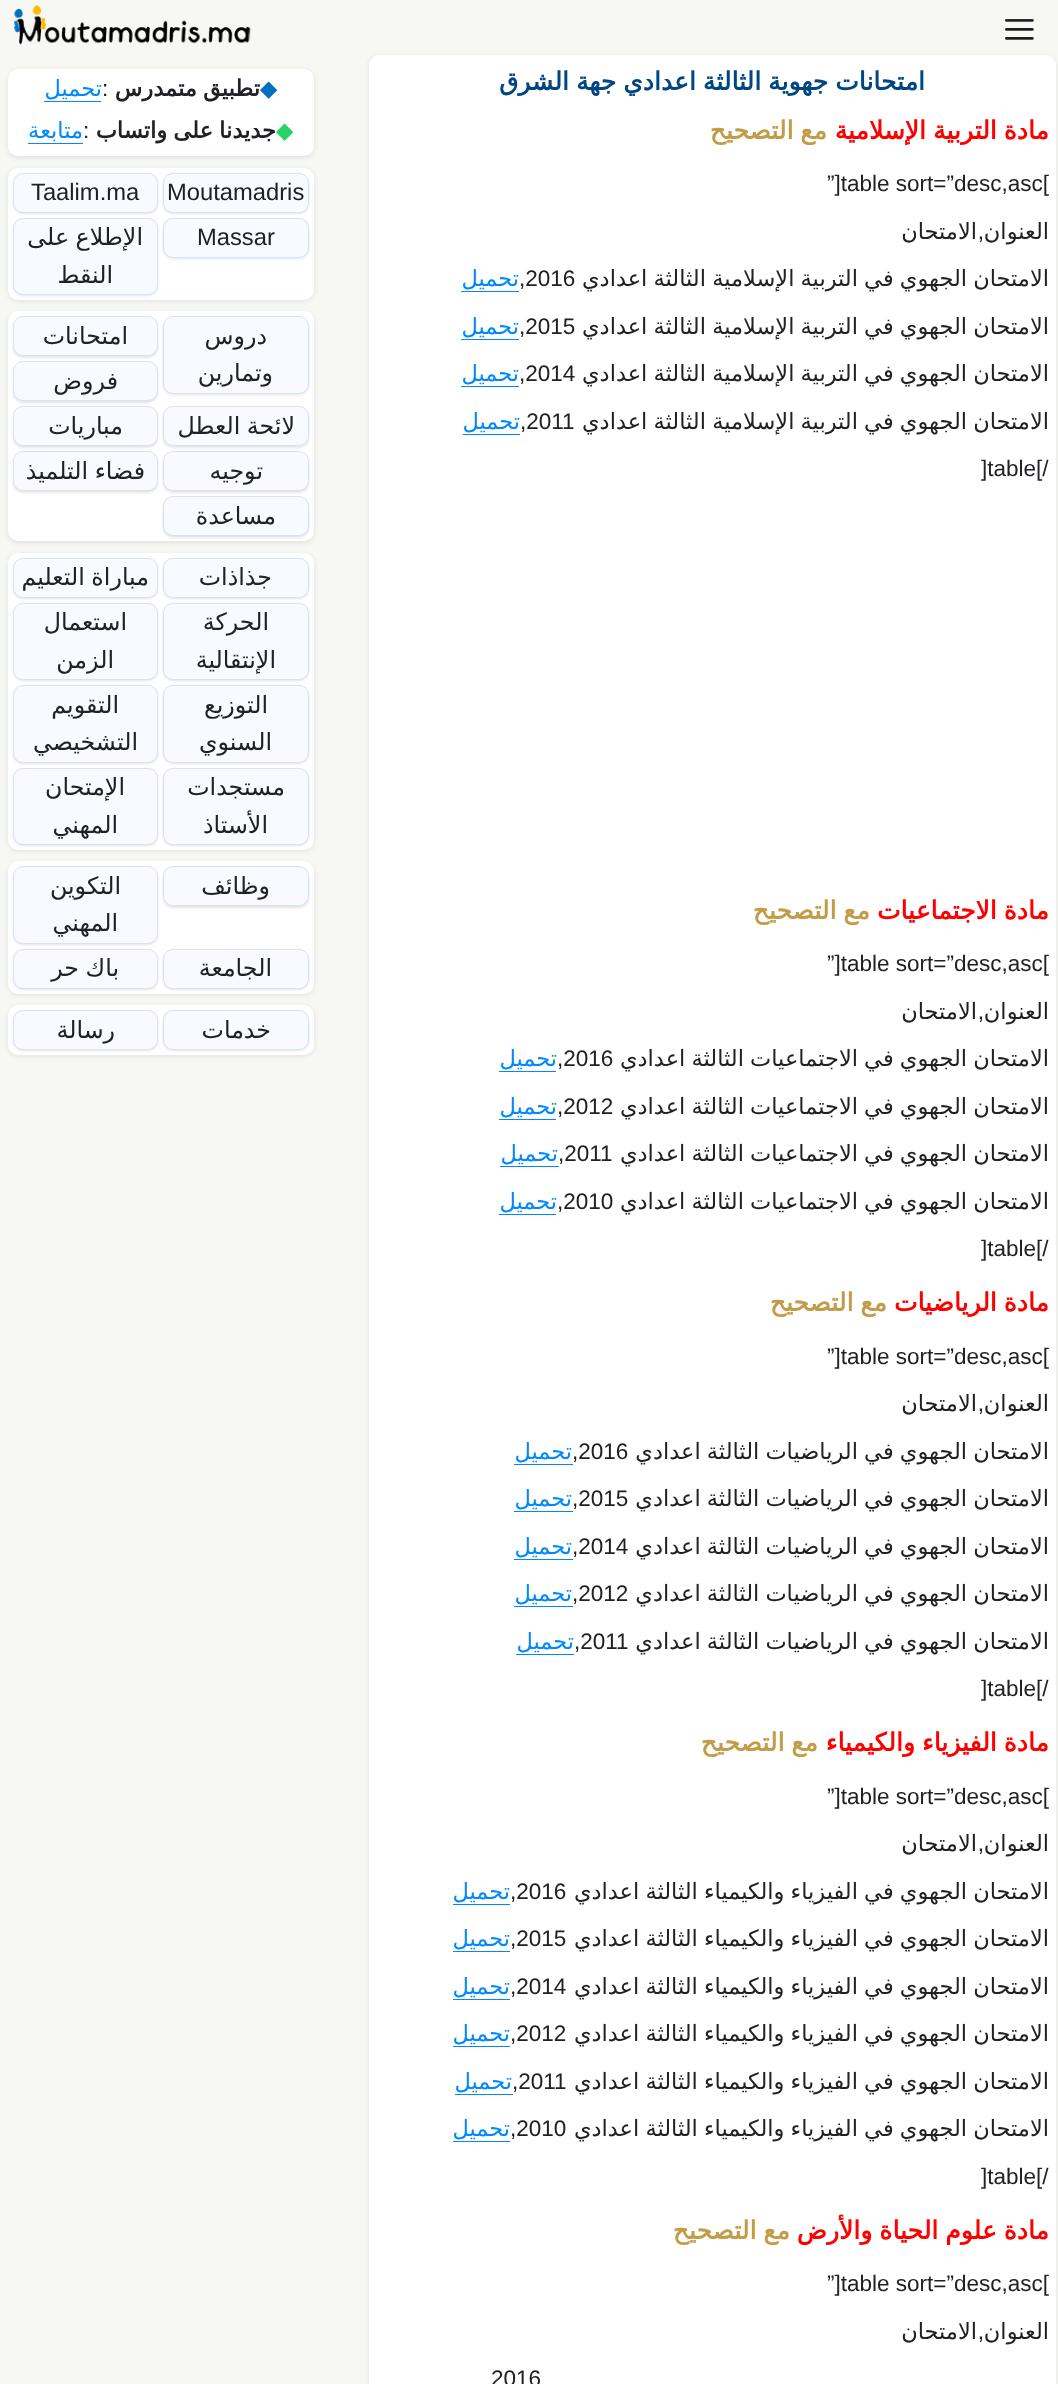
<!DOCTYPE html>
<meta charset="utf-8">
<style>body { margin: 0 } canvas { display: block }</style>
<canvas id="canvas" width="1058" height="2384"></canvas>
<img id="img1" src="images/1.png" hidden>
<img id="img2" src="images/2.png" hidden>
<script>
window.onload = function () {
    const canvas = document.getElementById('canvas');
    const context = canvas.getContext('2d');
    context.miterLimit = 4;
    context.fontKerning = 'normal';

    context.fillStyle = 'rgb(247, 247, 244)';
    context.fillRect(0, 0, 1058, 2384);
    context.drawImage(document.getElementById('img1'), 1005, 19, 29, 21);
    context.drawImage(document.getElementById('img2'), 14, 5, 237, 40);
    context.fillStyle = 'rgba(0, 0, 0, 0.09)';
    context.filter = 'blur(2.5px)';
    context.beginPath();
    context.roundRect(369, 56, 687, 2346, 10);
    context.fill();
    context.filter = 'none';
    context.fillStyle = 'rgb(255, 255, 255)';
    context.beginPath();
    context.roundRect(369, 55, 687, 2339, 10);
    context.fill();
    context.fillStyle = 'rgb(0, 136, 255)';
    context.fillRect(461, 291, 58, 1);
    context.fillRect(461, 339, 58, 1);
    context.fillRect(461, 386, 58, 1);
    context.fillRect(463, 434, 57, 1);
    context.fillRect(499, 1071, 57, 1);
    context.fillRect(499, 1119, 57, 1);
    context.fillRect(500, 1166, 59, 1);
    context.fillRect(499, 1214, 57, 1);
    context.fillRect(514, 1464, 59, 1);
    context.fillRect(514, 1511, 59, 1);
    context.fillRect(514, 1559, 59, 1);
    context.fillRect(514, 1606, 59, 1);
    context.fillRect(516, 1654, 58, 1);
    context.fillRect(453, 1904, 57, 1);
    context.fillRect(453, 1951, 57, 1);
    context.fillRect(453, 1999, 57, 1);
    context.fillRect(453, 2046, 57, 1);
    context.fillRect(455, 2094, 58, 1);
    context.fillRect(453, 2141, 57, 1);
    context.fillStyle = 'rgba(0, 0, 0, 0.09)';
    context.filter = 'blur(2.5px)';
    context.beginPath();
    context.roundRect(8, 70, 306, 88, 10);
    context.fill();
    context.filter = 'none';
    context.fillStyle = 'rgb(255, 255, 255)';
    context.beginPath();
    context.roundRect(8, 69, 306, 87, 10);
    context.fill();
    context.fillStyle = 'rgb(0, 136, 255)';
    context.fillRect(44, 101, 57, 1);
    context.fillRect(28, 143, 55, 1);
    context.fillStyle = 'rgba(0, 0, 0, 0.09)';
    context.filter = 'blur(2.5px)';
    context.beginPath();
    context.roundRect(8, 169, 306, 132, 10);
    context.fill();
    context.filter = 'none';
    context.fillStyle = 'rgb(255, 255, 255)';
    context.beginPath();
    context.roundRect(8, 168, 306, 132, 10);
    context.fill();
    context.fillStyle = 'rgba(0, 0, 0, 0.1)';
    context.filter = 'blur(1px)';
    context.beginPath();
    context.roundRect(163, 174, 146, 40, 10);
    context.fill();
    context.filter = 'none';
    context.fillStyle = 'rgb(248, 250, 255)';
    context.beginPath();
    context.roundRect(163.5, 173.5, 145, 39, 9.5);
    context.fill();
    context.strokeStyle = 'rgb(213, 226, 250)';
    context.stroke();
    context.fillStyle = 'rgba(0, 0, 0, 0.1)';
    context.filter = 'blur(1px)';
    context.beginPath();
    context.roundRect(13, 174, 145, 40, 10);
    context.fill();
    context.filter = 'none';
    context.fillStyle = 'rgb(248, 250, 255)';
    context.beginPath();
    context.roundRect(13.5, 173.5, 144, 39, 9.5);
    context.fill();
    context.stroke();
    context.fillStyle = 'rgba(0, 0, 0, 0.1)';
    context.filter = 'blur(1px)';
    context.beginPath();
    context.roundRect(163, 219, 146, 40, 10);
    context.fill();
    context.filter = 'none';
    context.fillStyle = 'rgb(248, 250, 255)';
    context.beginPath();
    context.roundRect(163.5, 218.5, 145, 39, 9.5);
    context.fill();
    context.stroke();
    context.fillStyle = 'rgba(0, 0, 0, 0.1)';
    context.filter = 'blur(1px)';
    context.beginPath();
    context.roundRect(13, 219, 145, 77, 10);
    context.fill();
    context.filter = 'none';
    context.fillStyle = 'rgb(248, 250, 255)';
    context.beginPath();
    context.roundRect(13.5, 218.5, 144, 76, 9.5);
    context.fill();
    context.stroke();
    context.fillStyle = 'rgba(0, 0, 0, 0.09)';
    context.filter = 'blur(2.5px)';
    context.beginPath();
    context.roundRect(8, 313, 306, 230, 10);
    context.fill();
    context.filter = 'none';
    context.fillStyle = 'rgb(255, 255, 255)';
    context.beginPath();
    context.roundRect(8, 311, 306, 230, 10);
    context.fill();
    context.fillStyle = 'rgba(0, 0, 0, 0.1)';
    context.filter = 'blur(1px)';
    context.beginPath();
    context.roundRect(163, 318, 146, 77, 10);
    context.fill();
    context.filter = 'none';
    context.fillStyle = 'rgb(248, 250, 255)';
    context.beginPath();
    context.roundRect(163.5, 316.5, 145, 77, 9.5);
    context.fill();
    context.stroke();
    context.fillStyle = 'rgba(0, 0, 0, 0.1)';
    context.filter = 'blur(1px)';
    context.beginPath();
    context.roundRect(13, 318, 145, 40, 10);
    context.fill();
    context.filter = 'none';
    context.fillStyle = 'rgb(248, 250, 255)';
    context.beginPath();
    context.roundRect(13.5, 316.5, 144, 39, 9.5);
    context.fill();
    context.stroke();
    context.fillStyle = 'rgba(0, 0, 0, 0.1)';
    context.filter = 'blur(1px)';
    context.beginPath();
    context.roundRect(13, 363, 145, 40, 10);
    context.fill();
    context.filter = 'none';
    context.fillStyle = 'rgb(248, 250, 255)';
    context.beginPath();
    context.roundRect(13.5, 361.5, 144, 39, 9.5);
    context.fill();
    context.stroke();
    context.fillStyle = 'rgba(0, 0, 0, 0.1)';
    context.filter = 'blur(1px)';
    context.beginPath();
    context.roundRect(163, 408, 146, 40, 10);
    context.fill();
    context.filter = 'none';
    context.fillStyle = 'rgb(248, 250, 255)';
    context.beginPath();
    context.roundRect(163.5, 406.5, 145, 39, 9.5);
    context.fill();
    context.stroke();
    context.fillStyle = 'rgba(0, 0, 0, 0.1)';
    context.filter = 'blur(1px)';
    context.beginPath();
    context.roundRect(13, 408, 145, 40, 10);
    context.fill();
    context.filter = 'none';
    context.fillStyle = 'rgb(248, 250, 255)';
    context.beginPath();
    context.roundRect(13.5, 406.5, 144, 39, 9.5);
    context.fill();
    context.stroke();
    context.fillStyle = 'rgba(0, 0, 0, 0.1)';
    context.filter = 'blur(1px)';
    context.beginPath();
    context.roundRect(163, 453, 146, 40, 10);
    context.fill();
    context.filter = 'none';
    context.fillStyle = 'rgb(248, 250, 255)';
    context.beginPath();
    context.roundRect(163.5, 451.5, 145, 39, 9.5);
    context.fill();
    context.stroke();
    context.fillStyle = 'rgba(0, 0, 0, 0.1)';
    context.filter = 'blur(1px)';
    context.beginPath();
    context.roundRect(13, 453, 145, 40, 10);
    context.fill();
    context.filter = 'none';
    context.fillStyle = 'rgb(248, 250, 255)';
    context.beginPath();
    context.roundRect(13.5, 451.5, 144, 39, 9.5);
    context.fill();
    context.stroke();
    context.fillStyle = 'rgba(0, 0, 0, 0.1)';
    context.filter = 'blur(1px)';
    context.beginPath();
    context.roundRect(163, 498, 146, 40, 10);
    context.fill();
    context.filter = 'none';
    context.fillStyle = 'rgb(248, 250, 255)';
    context.beginPath();
    context.roundRect(163.5, 496.5, 145, 39, 9.5);
    context.fill();
    context.stroke();
    context.fillStyle = 'rgba(0, 0, 0, 0.09)';
    context.filter = 'blur(2.5px)';
    context.beginPath();
    context.roundRect(8, 554, 306, 297, 10);
    context.fill();
    context.filter = 'none';
    context.fillStyle = 'rgb(255, 255, 255)';
    context.beginPath();
    context.roundRect(8, 553, 306, 297, 10);
    context.fill();
    context.fillStyle = 'rgba(0, 0, 0, 0.1)';
    context.filter = 'blur(1px)';
    context.beginPath();
    context.roundRect(163, 559, 146, 40, 10);
    context.fill();
    context.filter = 'none';
    context.fillStyle = 'rgb(248, 250, 255)';
    context.beginPath();
    context.roundRect(163.5, 558.5, 145, 39, 9.5);
    context.fill();
    context.stroke();
    context.fillStyle = 'rgba(0, 0, 0, 0.1)';
    context.filter = 'blur(1px)';
    context.beginPath();
    context.roundRect(13, 559, 145, 40, 10);
    context.fill();
    context.filter = 'none';
    context.fillStyle = 'rgb(248, 250, 255)';
    context.beginPath();
    context.roundRect(13.5, 558.5, 144, 39, 9.5);
    context.fill();
    context.stroke();
    context.fillStyle = 'rgba(0, 0, 0, 0.1)';
    context.filter = 'blur(1px)';
    context.beginPath();
    context.roundRect(163, 604, 146, 77, 10);
    context.fill();
    context.filter = 'none';
    context.fillStyle = 'rgb(248, 250, 255)';
    context.beginPath();
    context.roundRect(163.5, 603.5, 145, 76, 9.5);
    context.fill();
    context.stroke();
    context.fillStyle = 'rgba(0, 0, 0, 0.1)';
    context.filter = 'blur(1px)';
    context.beginPath();
    context.roundRect(13, 604, 145, 77, 10);
    context.fill();
    context.filter = 'none';
    context.fillStyle = 'rgb(248, 250, 255)';
    context.beginPath();
    context.roundRect(13.5, 603.5, 144, 76, 9.5);
    context.fill();
    context.stroke();
    context.fillStyle = 'rgba(0, 0, 0, 0.1)';
    context.filter = 'blur(1px)';
    context.beginPath();
    context.roundRect(163, 686, 146, 78, 10);
    context.fill();
    context.filter = 'none';
    context.fillStyle = 'rgb(248, 250, 255)';
    context.beginPath();
    context.roundRect(163.5, 685.5, 145, 77, 9.5);
    context.fill();
    context.stroke();
    context.fillStyle = 'rgba(0, 0, 0, 0.1)';
    context.filter = 'blur(1px)';
    context.beginPath();
    context.roundRect(13, 686, 145, 78, 10);
    context.fill();
    context.filter = 'none';
    context.fillStyle = 'rgb(248, 250, 255)';
    context.beginPath();
    context.roundRect(13.5, 685.5, 144, 77, 9.5);
    context.fill();
    context.stroke();
    context.fillStyle = 'rgba(0, 0, 0, 0.1)';
    context.filter = 'blur(1px)';
    context.beginPath();
    context.roundRect(163, 769, 146, 77, 10);
    context.fill();
    context.filter = 'none';
    context.fillStyle = 'rgb(248, 250, 255)';
    context.beginPath();
    context.roundRect(163.5, 768.5, 145, 76, 9.5);
    context.fill();
    context.stroke();
    context.fillStyle = 'rgba(0, 0, 0, 0.1)';
    context.filter = 'blur(1px)';
    context.beginPath();
    context.roundRect(13, 769, 145, 77, 10);
    context.fill();
    context.filter = 'none';
    context.fillStyle = 'rgb(248, 250, 255)';
    context.beginPath();
    context.roundRect(13.5, 768.5, 144, 76, 9.5);
    context.fill();
    context.stroke();
    context.fillStyle = 'rgba(0, 0, 0, 0.09)';
    context.filter = 'blur(2.5px)';
    context.beginPath();
    context.roundRect(8, 863, 306, 132, 10);
    context.fill();
    context.filter = 'none';
    context.fillStyle = 'rgb(255, 255, 255)';
    context.beginPath();
    context.roundRect(8, 861, 306, 133, 10);
    context.fill();
    context.fillStyle = 'rgba(0, 0, 0, 0.1)';
    context.filter = 'blur(1px)';
    context.beginPath();
    context.roundRect(163, 868, 146, 40, 10);
    context.fill();
    context.filter = 'none';
    context.fillStyle = 'rgb(248, 250, 255)';
    context.beginPath();
    context.roundRect(163.5, 866.5, 145, 39, 9.5);
    context.fill();
    context.stroke();
    context.fillStyle = 'rgba(0, 0, 0, 0.1)';
    context.filter = 'blur(1px)';
    context.beginPath();
    context.roundRect(13, 868, 145, 77, 10);
    context.fill();
    context.filter = 'none';
    context.fillStyle = 'rgb(248, 250, 255)';
    context.beginPath();
    context.roundRect(13.5, 866.5, 144, 77, 9.5);
    context.fill();
    context.stroke();
    context.fillStyle = 'rgba(0, 0, 0, 0.1)';
    context.filter = 'blur(1px)';
    context.beginPath();
    context.roundRect(163, 950, 146, 40, 10);
    context.fill();
    context.filter = 'none';
    context.fillStyle = 'rgb(248, 250, 255)';
    context.beginPath();
    context.roundRect(163.5, 949.5, 145, 39, 9.5);
    context.fill();
    context.stroke();
    context.fillStyle = 'rgba(0, 0, 0, 0.1)';
    context.filter = 'blur(1px)';
    context.beginPath();
    context.roundRect(13, 950, 145, 40, 10);
    context.fill();
    context.filter = 'none';
    context.fillStyle = 'rgb(248, 250, 255)';
    context.beginPath();
    context.roundRect(13.5, 949.5, 144, 39, 9.5);
    context.fill();
    context.stroke();
    context.fillStyle = 'rgba(0, 0, 0, 0.09)';
    context.filter = 'blur(2.5px)';
    context.beginPath();
    context.roundRect(8, 1006, 306, 50, 10);
    context.fill();
    context.filter = 'none';
    context.fillStyle = 'rgb(255, 255, 255)';
    context.beginPath();
    context.roundRect(8, 1005, 306, 50, 10);
    context.fill();
    context.fillStyle = 'rgba(0, 0, 0, 0.1)';
    context.filter = 'blur(1px)';
    context.beginPath();
    context.roundRect(163, 1011, 146, 40, 10);
    context.fill();
    context.filter = 'none';
    context.fillStyle = 'rgb(248, 250, 255)';
    context.beginPath();
    context.roundRect(163.5, 1010.5, 145, 39, 9.5);
    context.fill();
    context.stroke();
    context.fillStyle = 'rgba(0, 0, 0, 0.1)';
    context.filter = 'blur(1px)';
    context.beginPath();
    context.roundRect(13, 1011, 145, 40, 10);
    context.fill();
    context.filter = 'none';
    context.fillStyle = 'rgb(248, 250, 255)';
    context.beginPath();
    context.roundRect(13.5, 1010.5, 144, 39, 9.5);
    context.fill();
    context.stroke();
    context.wordSpacing = '-1px';
    context.direction = 'rtl';
    context.font = 'bold 25px DejaVu Sans';
    context.fillStyle = 'rgb(0, 70, 128)';
    context.fillText('امتحانات جهوية الثالثة اعدادي جهة الشرق', 925, 90);
    context.fillStyle = 'rgb(255, 0, 0)';
    context.fillText('مادة التربية الإسلامية', 1049, 139);
    context.fillStyle = 'rgb(194, 156, 71)';
    context.fillText('مع التصحيح', 827, 139);
    context.wordSpacing = '0px';
    context.direction = 'ltr';
    context.font = '22.5px Liberation Sans';
    context.fillStyle = 'rgb(32, 33, 37)';
    context.fillText('”]table sort=”desc,asc[', 827, 191);
    context.direction = 'rtl';
    context.font = '22.5px DejaVu Sans';
    context.fillText('العنوان', 1049, 239);
    context.font = '22.5px Liberation Sans';
    context.fillText(',', 984, 239);
    context.font = '22.5px DejaVu Sans';
    context.fillText('الامتحان', 977, 239);
    context.wordSpacing = '-1px';
    context.fillText('الامتحان الجهوي في التربية الإسلامية الثالثة اعدادي', 1049, 286);
    context.wordSpacing = '0px';
    context.direction = 'ltr';
    context.font = '22.5px Liberation Sans';
    context.fillText(',2016', 519, 286);
    context.direction = 'rtl';
    context.font = '22.5px DejaVu Sans';
    context.fillStyle = 'rgb(0, 136, 255)';
    context.fillText('تحميل', 519, 286);
    context.wordSpacing = '-1px';
    context.fillStyle = 'rgb(32, 33, 37)';
    context.fillText('الامتحان الجهوي في التربية الإسلامية الثالثة اعدادي', 1049, 334);
    context.wordSpacing = '0px';
    context.direction = 'ltr';
    context.font = '22.5px Liberation Sans';
    context.fillText(',2015', 519, 334);
    context.direction = 'rtl';
    context.font = '22.5px DejaVu Sans';
    context.fillStyle = 'rgb(0, 136, 255)';
    context.fillText('تحميل', 519, 334);
    context.wordSpacing = '-1px';
    context.fillStyle = 'rgb(32, 33, 37)';
    context.fillText('الامتحان الجهوي في التربية الإسلامية الثالثة اعدادي', 1049, 381);
    context.wordSpacing = '0px';
    context.direction = 'ltr';
    context.font = '22.5px Liberation Sans';
    context.fillText(',2014', 519, 381);
    context.direction = 'rtl';
    context.font = '22.5px DejaVu Sans';
    context.fillStyle = 'rgb(0, 136, 255)';
    context.fillText('تحميل', 519, 381);
    context.wordSpacing = '-1px';
    context.fillStyle = 'rgb(32, 33, 37)';
    context.fillText('الامتحان الجهوي في التربية الإسلامية الثالثة اعدادي', 1049, 429);
    context.wordSpacing = '0px';
    context.direction = 'ltr';
    context.font = '22.5px Liberation Sans';
    context.fillText(',2011', 520, 429);
    context.direction = 'rtl';
    context.font = '22.5px DejaVu Sans';
    context.fillStyle = 'rgb(0, 136, 255)';
    context.fillText('تحميل', 520, 429);
    context.direction = 'ltr';
    context.font = '22.5px Liberation Sans';
    context.fillStyle = 'rgb(32, 33, 37)';
    context.fillText(']table[/', 981, 476);
    context.wordSpacing = '-1px';
    context.direction = 'rtl';
    context.font = 'bold 25px DejaVu Sans';
    context.fillStyle = 'rgb(255, 0, 0)';
    context.fillText('مادة الاجتماعيات', 1049, 919);
    context.fillStyle = 'rgb(194, 156, 71)';
    context.fillText('مع التصحيح', 870, 919);
    context.wordSpacing = '0px';
    context.direction = 'ltr';
    context.font = '22.5px Liberation Sans';
    context.fillStyle = 'rgb(32, 33, 37)';
    context.fillText('”]table sort=”desc,asc[', 827, 971);
    context.direction = 'rtl';
    context.font = '22.5px DejaVu Sans';
    context.fillText('العنوان', 1049, 1019);
    context.font = '22.5px Liberation Sans';
    context.fillText(',', 984, 1019);
    context.font = '22.5px DejaVu Sans';
    context.fillText('الامتحان', 977, 1019);
    context.wordSpacing = '-1px';
    context.fillText('الامتحان الجهوي في الاجتماعيات الثالثة اعدادي', 1049, 1066);
    context.wordSpacing = '0px';
    context.direction = 'ltr';
    context.font = '22.5px Liberation Sans';
    context.fillText(',2016', 557, 1066);
    context.direction = 'rtl';
    context.font = '22.5px DejaVu Sans';
    context.fillStyle = 'rgb(0, 136, 255)';
    context.fillText('تحميل', 557, 1066);
    context.wordSpacing = '-1px';
    context.fillStyle = 'rgb(32, 33, 37)';
    context.fillText('الامتحان الجهوي في الاجتماعيات الثالثة اعدادي', 1049, 1114);
    context.wordSpacing = '0px';
    context.direction = 'ltr';
    context.font = '22.5px Liberation Sans';
    context.fillText(',2012', 557, 1114);
    context.direction = 'rtl';
    context.font = '22.5px DejaVu Sans';
    context.fillStyle = 'rgb(0, 136, 255)';
    context.fillText('تحميل', 557, 1114);
    context.wordSpacing = '-1px';
    context.fillStyle = 'rgb(32, 33, 37)';
    context.fillText('الامتحان الجهوي في الاجتماعيات الثالثة اعدادي', 1049, 1161);
    context.wordSpacing = '0px';
    context.direction = 'ltr';
    context.font = '22.5px Liberation Sans';
    context.fillText(',2011', 558, 1161);
    context.direction = 'rtl';
    context.font = '22.5px DejaVu Sans';
    context.fillStyle = 'rgb(0, 136, 255)';
    context.fillText('تحميل', 558, 1161);
    context.wordSpacing = '-1px';
    context.fillStyle = 'rgb(32, 33, 37)';
    context.fillText('الامتحان الجهوي في الاجتماعيات الثالثة اعدادي', 1049, 1209);
    context.wordSpacing = '0px';
    context.direction = 'ltr';
    context.font = '22.5px Liberation Sans';
    context.fillText(',2010', 557, 1209);
    context.direction = 'rtl';
    context.font = '22.5px DejaVu Sans';
    context.fillStyle = 'rgb(0, 136, 255)';
    context.fillText('تحميل', 557, 1209);
    context.direction = 'ltr';
    context.font = '22.5px Liberation Sans';
    context.fillStyle = 'rgb(32, 33, 37)';
    context.fillText(']table[/', 981, 1256);
    context.wordSpacing = '-1px';
    context.direction = 'rtl';
    context.font = 'bold 25px DejaVu Sans';
    context.fillStyle = 'rgb(255, 0, 0)';
    context.fillText('مادة الرياضيات', 1049, 1311);
    context.fillStyle = 'rgb(194, 156, 71)';
    context.fillText('مع التصحيح', 887, 1311);
    context.wordSpacing = '0px';
    context.direction = 'ltr';
    context.font = '22.5px Liberation Sans';
    context.fillStyle = 'rgb(32, 33, 37)';
    context.fillText('”]table sort=”desc,asc[', 827, 1364);
    context.direction = 'rtl';
    context.font = '22.5px DejaVu Sans';
    context.fillText('العنوان', 1049, 1411);
    context.font = '22.5px Liberation Sans';
    context.fillText(',', 984, 1411);
    context.font = '22.5px DejaVu Sans';
    context.fillText('الامتحان', 977, 1411);
    context.wordSpacing = '-1px';
    context.fillText('الامتحان الجهوي في الرياضيات الثالثة اعدادي', 1049, 1459);
    context.wordSpacing = '0px';
    context.direction = 'ltr';
    context.font = '22.5px Liberation Sans';
    context.fillText(',2016', 572, 1459);
    context.direction = 'rtl';
    context.font = '22.5px DejaVu Sans';
    context.fillStyle = 'rgb(0, 136, 255)';
    context.fillText('تحميل', 572, 1459);
    context.wordSpacing = '-1px';
    context.fillStyle = 'rgb(32, 33, 37)';
    context.fillText('الامتحان الجهوي في الرياضيات الثالثة اعدادي', 1049, 1506);
    context.wordSpacing = '0px';
    context.direction = 'ltr';
    context.font = '22.5px Liberation Sans';
    context.fillText(',2015', 572, 1506);
    context.direction = 'rtl';
    context.font = '22.5px DejaVu Sans';
    context.fillStyle = 'rgb(0, 136, 255)';
    context.fillText('تحميل', 572, 1506);
    context.wordSpacing = '-1px';
    context.fillStyle = 'rgb(32, 33, 37)';
    context.fillText('الامتحان الجهوي في الرياضيات الثالثة اعدادي', 1049, 1554);
    context.wordSpacing = '0px';
    context.direction = 'ltr';
    context.font = '22.5px Liberation Sans';
    context.fillText(',2014', 572, 1554);
    context.direction = 'rtl';
    context.font = '22.5px DejaVu Sans';
    context.fillStyle = 'rgb(0, 136, 255)';
    context.fillText('تحميل', 572, 1554);
    context.wordSpacing = '-1px';
    context.fillStyle = 'rgb(32, 33, 37)';
    context.fillText('الامتحان الجهوي في الرياضيات الثالثة اعدادي', 1049, 1601);
    context.wordSpacing = '0px';
    context.direction = 'ltr';
    context.font = '22.5px Liberation Sans';
    context.fillText(',2012', 572, 1601);
    context.direction = 'rtl';
    context.font = '22.5px DejaVu Sans';
    context.fillStyle = 'rgb(0, 136, 255)';
    context.fillText('تحميل', 572, 1601);
    context.wordSpacing = '-1px';
    context.fillStyle = 'rgb(32, 33, 37)';
    context.fillText('الامتحان الجهوي في الرياضيات الثالثة اعدادي', 1049, 1649);
    context.wordSpacing = '0px';
    context.direction = 'ltr';
    context.font = '22.5px Liberation Sans';
    context.fillText(',2011', 574, 1649);
    context.direction = 'rtl';
    context.font = '22.5px DejaVu Sans';
    context.fillStyle = 'rgb(0, 136, 255)';
    context.fillText('تحميل', 574, 1649);
    context.direction = 'ltr';
    context.font = '22.5px Liberation Sans';
    context.fillStyle = 'rgb(32, 33, 37)';
    context.fillText(']table[/', 981, 1696);
    context.wordSpacing = '-1px';
    context.direction = 'rtl';
    context.font = 'bold 25px DejaVu Sans';
    context.fillStyle = 'rgb(255, 0, 0)';
    context.fillText('مادة الفيزياء والكيمياء', 1049, 1751);
    context.fillStyle = 'rgb(194, 156, 71)';
    context.fillText('مع التصحيح', 818, 1751);
    context.wordSpacing = '0px';
    context.direction = 'ltr';
    context.font = '22.5px Liberation Sans';
    context.fillStyle = 'rgb(32, 33, 37)';
    context.fillText('”]table sort=”desc,asc[', 827, 1804);
    context.direction = 'rtl';
    context.font = '22.5px DejaVu Sans';
    context.fillText('العنوان', 1049, 1851);
    context.font = '22.5px Liberation Sans';
    context.fillText(',', 984, 1851);
    context.font = '22.5px DejaVu Sans';
    context.fillText('الامتحان', 977, 1851);
    context.wordSpacing = '-1px';
    context.fillText('الامتحان الجهوي في الفيزياء والكيمياء الثالثة اعدادي', 1049, 1899);
    context.wordSpacing = '0px';
    context.direction = 'ltr';
    context.font = '22.5px Liberation Sans';
    context.fillText(',2016', 510, 1899);
    context.direction = 'rtl';
    context.font = '22.5px DejaVu Sans';
    context.fillStyle = 'rgb(0, 136, 255)';
    context.fillText('تحميل', 510, 1899);
    context.wordSpacing = '-1px';
    context.fillStyle = 'rgb(32, 33, 37)';
    context.fillText('الامتحان الجهوي في الفيزياء والكيمياء الثالثة اعدادي', 1049, 1946);
    context.wordSpacing = '0px';
    context.direction = 'ltr';
    context.font = '22.5px Liberation Sans';
    context.fillText(',2015', 510, 1946);
    context.direction = 'rtl';
    context.font = '22.5px DejaVu Sans';
    context.fillStyle = 'rgb(0, 136, 255)';
    context.fillText('تحميل', 510, 1946);
    context.wordSpacing = '-1px';
    context.fillStyle = 'rgb(32, 33, 37)';
    context.fillText('الامتحان الجهوي في الفيزياء والكيمياء الثالثة اعدادي', 1049, 1994);
    context.wordSpacing = '0px';
    context.direction = 'ltr';
    context.font = '22.5px Liberation Sans';
    context.fillText(',2014', 510, 1994);
    context.direction = 'rtl';
    context.font = '22.5px DejaVu Sans';
    context.fillStyle = 'rgb(0, 136, 255)';
    context.fillText('تحميل', 510, 1994);
    context.wordSpacing = '-1px';
    context.fillStyle = 'rgb(32, 33, 37)';
    context.fillText('الامتحان الجهوي في الفيزياء والكيمياء الثالثة اعدادي', 1049, 2041);
    context.wordSpacing = '0px';
    context.direction = 'ltr';
    context.font = '22.5px Liberation Sans';
    context.fillText(',2012', 510, 2041);
    context.direction = 'rtl';
    context.font = '22.5px DejaVu Sans';
    context.fillStyle = 'rgb(0, 136, 255)';
    context.fillText('تحميل', 510, 2041);
    context.wordSpacing = '-1px';
    context.fillStyle = 'rgb(32, 33, 37)';
    context.fillText('الامتحان الجهوي في الفيزياء والكيمياء الثالثة اعدادي', 1049, 2089);
    context.wordSpacing = '0px';
    context.direction = 'ltr';
    context.font = '22.5px Liberation Sans';
    context.fillText(',2011', 512, 2089);
    context.direction = 'rtl';
    context.font = '22.5px DejaVu Sans';
    context.fillStyle = 'rgb(0, 136, 255)';
    context.fillText('تحميل', 512, 2089);
    context.wordSpacing = '-1px';
    context.fillStyle = 'rgb(32, 33, 37)';
    context.fillText('الامتحان الجهوي في الفيزياء والكيمياء الثالثة اعدادي', 1049, 2136);
    context.wordSpacing = '0px';
    context.direction = 'ltr';
    context.font = '22.5px Liberation Sans';
    context.fillText(',2010', 510, 2136);
    context.direction = 'rtl';
    context.font = '22.5px DejaVu Sans';
    context.fillStyle = 'rgb(0, 136, 255)';
    context.fillText('تحميل', 510, 2136);
    context.direction = 'ltr';
    context.font = '22.5px Liberation Sans';
    context.fillStyle = 'rgb(32, 33, 37)';
    context.fillText(']table[/', 981, 2184);
    context.wordSpacing = '-1px';
    context.direction = 'rtl';
    context.font = 'bold 25px DejaVu Sans';
    context.fillStyle = 'rgb(255, 0, 0)';
    context.fillText('مادة علوم الحياة والأرض', 1049, 2239);
    context.fillStyle = 'rgb(194, 156, 71)';
    context.fillText('مع التصحيح', 790, 2239);
    context.wordSpacing = '0px';
    context.direction = 'ltr';
    context.font = '22.5px Liberation Sans';
    context.fillStyle = 'rgb(32, 33, 37)';
    context.fillText('”]table sort=”desc,asc[', 827, 2291);
    context.direction = 'rtl';
    context.font = '22.5px DejaVu Sans';
    context.fillText('العنوان', 1049, 2339);
    context.font = '22.5px Liberation Sans';
    context.fillText(',', 984, 2339);
    context.font = '22.5px DejaVu Sans';
    context.fillText('الامتحان', 977, 2339);
    context.direction = 'ltr';
    context.font = '22.5px Liberation Sans';
    context.fillText('2016', 491, 2386);
    context.font = '22.5px DejaVu Sans';
    context.fillStyle = 'rgb(0, 112, 192)';
    context.fillText('◆', 260, 96);
    context.wordSpacing = '-1px';
    context.direction = 'rtl';
    context.font = 'bold 22.5px DejaVu Sans';
    context.fillStyle = 'rgb(32, 33, 37)';
    context.fillText('تطبيق متمدرس', 260, 96);
    context.wordSpacing = '0px';
    context.direction = 'ltr';
    context.font = '22.5px Liberation Sans';
    context.fillText(':', 102, 96);
    context.direction = 'rtl';
    context.font = '22.5px DejaVu Sans';
    context.fillStyle = 'rgb(0, 136, 255)';
    context.fillText('تحميل', 102, 96);
    context.direction = 'ltr';
    context.fillStyle = 'rgb(37, 211, 102)';
    context.fillText('◆', 276, 138);
    context.wordSpacing = '-1px';
    context.direction = 'rtl';
    context.font = 'bold 22.5px DejaVu Sans';
    context.fillStyle = 'rgb(32, 33, 37)';
    context.fillText('جديدنا على واتساب', 276, 138);
    context.wordSpacing = '0px';
    context.direction = 'ltr';
    context.font = '22.5px Liberation Sans';
    context.fillText(':', 83, 138);
    context.direction = 'rtl';
    context.font = '22.5px DejaVu Sans';
    context.fillStyle = 'rgb(0, 136, 255)';
    context.fillText('متابعة', 83, 138);
    context.direction = 'ltr';
    context.font = '23.75px Liberation Sans';
    context.fillStyle = 'rgb(32, 33, 37)';
    context.fillText('Moutamadris', 167, 200);
    context.fillText('Taalim.ma', 31, 200);
    context.fillText('Massar', 197, 245);
    context.wordSpacing = '-1px';
    context.direction = 'rtl';
    context.font = '23.75px DejaVu Sans';
    context.fillText('الإطلاع على', 143, 245);
    context.wordSpacing = '0px';
    context.fillText('النقط', 113, 283);
    context.fillText('دروس', 267, 344);
    context.fillText('وتمارين', 273, 381);
    context.fillText('امتحانات', 128, 344);
    context.fillText('فروض', 118, 389);
    context.wordSpacing = '-1px';
    context.fillText('لائحة العطل', 295, 434);
    context.wordSpacing = '0px';
    context.fillText('مباريات', 123, 434);
    context.fillText('توجيه', 263, 479);
    context.wordSpacing = '-1px';
    context.fillText('فضاء التلميذ', 145, 479);
    context.wordSpacing = '0px';
    context.fillText('مساعدة', 276, 524);
    context.fillText('جذاذات', 272, 585);
    context.wordSpacing = '-1px';
    context.fillText('مباراة التعليم', 149, 585);
    context.wordSpacing = '0px';
    context.fillText('الحركة', 269, 630);
    context.fillText('الإنتقالية', 276, 668);
    context.fillText('استعمال', 127, 630);
    context.fillText('الزمن', 114, 668);
    context.fillText('التوزيع', 268, 713);
    context.fillText('السنوي', 272, 750);
    context.fillText('التقويم', 119, 713);
    context.fillText('التشخيصي', 138, 750);
    context.fillText('مستجدات', 285, 795);
    context.fillText('الأستاذ', 268, 833);
    context.fillText('الإمتحان', 125, 795);
    context.fillText('المهني', 118, 833);
    context.fillText('وظائف', 270, 894);
    context.fillText('التكوين', 121, 894);
    context.fillText('المهني', 118, 931);
    context.fillText('الجامعة', 272, 976);
    context.wordSpacing = '-1px';
    context.fillText('باك حر', 119, 976);
    context.wordSpacing = '0px';
    context.fillText('خدمات', 271, 1038);
    context.fillText('رسالة', 115, 1038);
};
</script>
